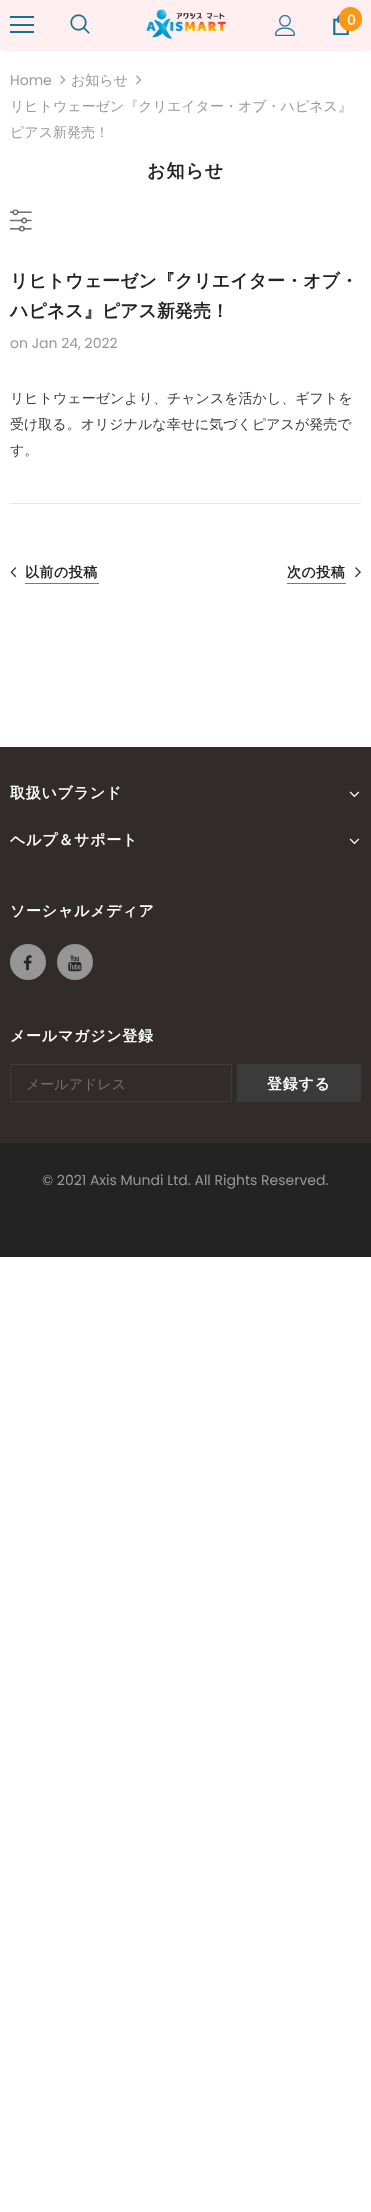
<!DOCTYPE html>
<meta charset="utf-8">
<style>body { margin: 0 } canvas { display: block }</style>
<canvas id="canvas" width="371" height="2212"></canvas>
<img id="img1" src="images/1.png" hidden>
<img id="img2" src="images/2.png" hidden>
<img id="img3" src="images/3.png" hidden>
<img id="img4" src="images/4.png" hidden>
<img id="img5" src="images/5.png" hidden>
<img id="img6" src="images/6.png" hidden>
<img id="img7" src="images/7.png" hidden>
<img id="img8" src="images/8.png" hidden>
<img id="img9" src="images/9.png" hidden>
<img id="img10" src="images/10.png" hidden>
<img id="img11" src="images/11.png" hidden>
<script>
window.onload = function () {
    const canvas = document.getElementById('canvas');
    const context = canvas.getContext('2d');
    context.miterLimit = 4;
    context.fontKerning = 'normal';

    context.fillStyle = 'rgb(255, 255, 255)';
    context.fillRect(0, 0, 371, 2212);
    context.fillStyle = 'rgba(0, 0, 0, 0.12)';
    context.filter = 'blur(1.5px)';
    context.beginPath();
    context.rect(3, 6, 365, 44);
    context.fill();
    context.filter = 'none';
    context.fillStyle = 'rgb(255, 239, 240)';
    context.fillRect(0, 0, 371, 50);
    context.fillStyle = 'rgb(20, 113, 151)';
    context.fillRect(10, 16, 24, 2);
    context.fillRect(10, 24, 24, 2);
    context.fillRect(10, 31, 24, 2);
    context.drawImage(document.getElementById('img1'), 70, 14, 20, 20);
    context.drawImage(document.getElementById('img2'), 146, 9, 80, 30);
    context.drawImage(document.getElementById('img3'), 275, 15, 20, 21);
    context.drawImage(document.getElementById('img4'), 333, 15, 16, 20);
    context.fillStyle = 'rgb(249, 152, 17)';
    context.beginPath();
    context.roundRect(339, 7, 23, 24, 11.5);
    context.fill();
    context.drawImage(document.getElementById('img5'), 60, 75, 6, 10);
    context.drawImage(document.getElementById('img5'), 136, 75, 6, 10);
    context.drawImage(document.getElementById('img6'), 10, 209, 22, 23);
    context.fillStyle = 'rgb(230, 230, 230)';
    context.fillRect(10, 503, 351, 1);
    context.drawImage(document.getElementById('img7'), 10, 567, 7, 11);
    context.fillStyle = 'rgb(120, 120, 120)';
    context.fillRect(25, 583, 74, 1);
    context.fillRect(287, 583, 59, 1);
    context.drawImage(document.getElementById('img8'), 355, 567, 6, 11);
    context.fillStyle = 'rgb(49, 43, 43)';
    context.fillRect(0, 747, 371, 396);
    context.drawImage(document.getElementById('img9'), 349, 791, 11, 7);
    context.drawImage(document.getElementById('img9'), 349, 838, 11, 7);
    context.fillStyle = 'rgb(150, 150, 150)';
    context.beginPath();
    context.arc(28, 962, 18, 0, 2 * Math.PI);
    context.fill();
    context.drawImage(document.getElementById('img10'), 23, 955, 9, 16);
    context.beginPath();
    context.arc(75, 962, 18, 0, 2 * Math.PI);
    context.fill();
    context.drawImage(document.getElementById('img11'), 68, 955, 14, 17);
    context.strokeStyle = 'rgb(59, 59, 59)';
    context.strokeRect(10.5, 1064.5, 221, 37);
    context.fillStyle = 'rgb(59, 59, 59)';
    context.fillRect(237, 1064, 124, 38);
    context.fillStyle = 'rgb(35, 35, 35)';
    context.fillRect(0, 1143, 371, 114);
    context.font = '500 14px Poppins';
    context.fillStyle = 'rgb(255, 255, 255)';
    context.fillText('0', 347, 25);
    context.font = '14px Poppins';
    context.fillStyle = 'rgb(153, 153, 153)';
    context.fillText('Home', 10, 85);
    context.font = '500 14px WenQuanYi Zen Hei';
    context.fillText('お知らせ', 71, 85);
    context.fillText('リヒトウェーゼン『クリエイター・オブ・ハピネス』', 10, 111);
    context.fillText('ピアス新発売！', 10, 137);
    context.letterSpacing = '1px';
    context.font = 'bold 18px WenQuanYi Zen Hei';
    context.fillStyle = 'rgb(35, 35, 35)';
    context.fillText('お知らせ', 147, 177);
    context.letterSpacing = '0px';
    context.fillText('リヒトウェーゼン『クリエイター・オブ・', 10, 287);
    context.fillText('ハピネス』ピアス新発売！', 10, 317);
    context.font = '14px Poppins';
    context.fillStyle = 'rgb(153, 153, 153)';
    context.fillText('on Jan 24, 2022', 10, 348);
    context.font = '500 14px WenQuanYi Zen Hei';
    context.fillStyle = 'rgb(60, 60, 60)';
    context.fillText('リヒトウェーゼンより、チャンスを活かし、ギフトを', 10, 403);
    context.fillText('受け取る。オリジナルな幸せに気づくピアスが発売で', 10, 429);
    context.fillText('す。', 10, 455);
    context.letterSpacing = '0.5px';
    context.font = 'bold 14px WenQuanYi Zen Hei';
    context.fillStyle = 'rgb(35, 35, 35)';
    context.fillText('以前の投稿', 25, 577);
    context.fillText('次の投稿', 287, 577);
    context.letterSpacing = '0.75px';
    context.font = 'bold 15px WenQuanYi Zen Hei';
    context.fillStyle = 'rgb(255, 255, 255)';
    context.fillText('取扱いブランド', 10, 798);
    context.fillText('ヘルプ＆サポート', 10, 845);
    context.fillText('ソーシャルメディア', 10, 916);
    context.fillText('メールマガジン登録', 10, 1041);
    context.letterSpacing = '0px';
    context.font = '500 14px WenQuanYi Zen Hei';
    context.fillStyle = 'rgb(113, 113, 113)';
    context.fillText('メールアドレス', 26, 1089);
    context.letterSpacing = '0.75px';
    context.font = 'bold 15px WenQuanYi Zen Hei';
    context.fillStyle = 'rgb(255, 255, 255)';
    context.fillText('登録する', 267, 1089);
    context.letterSpacing = '0px';
    context.font = '14px Poppins';
    context.fillStyle = 'rgb(153, 153, 153)';
    context.fillText('© 2021 Axis Mundi Ltd. All Rights Reserved.', 42, 1185);
};
</script>
